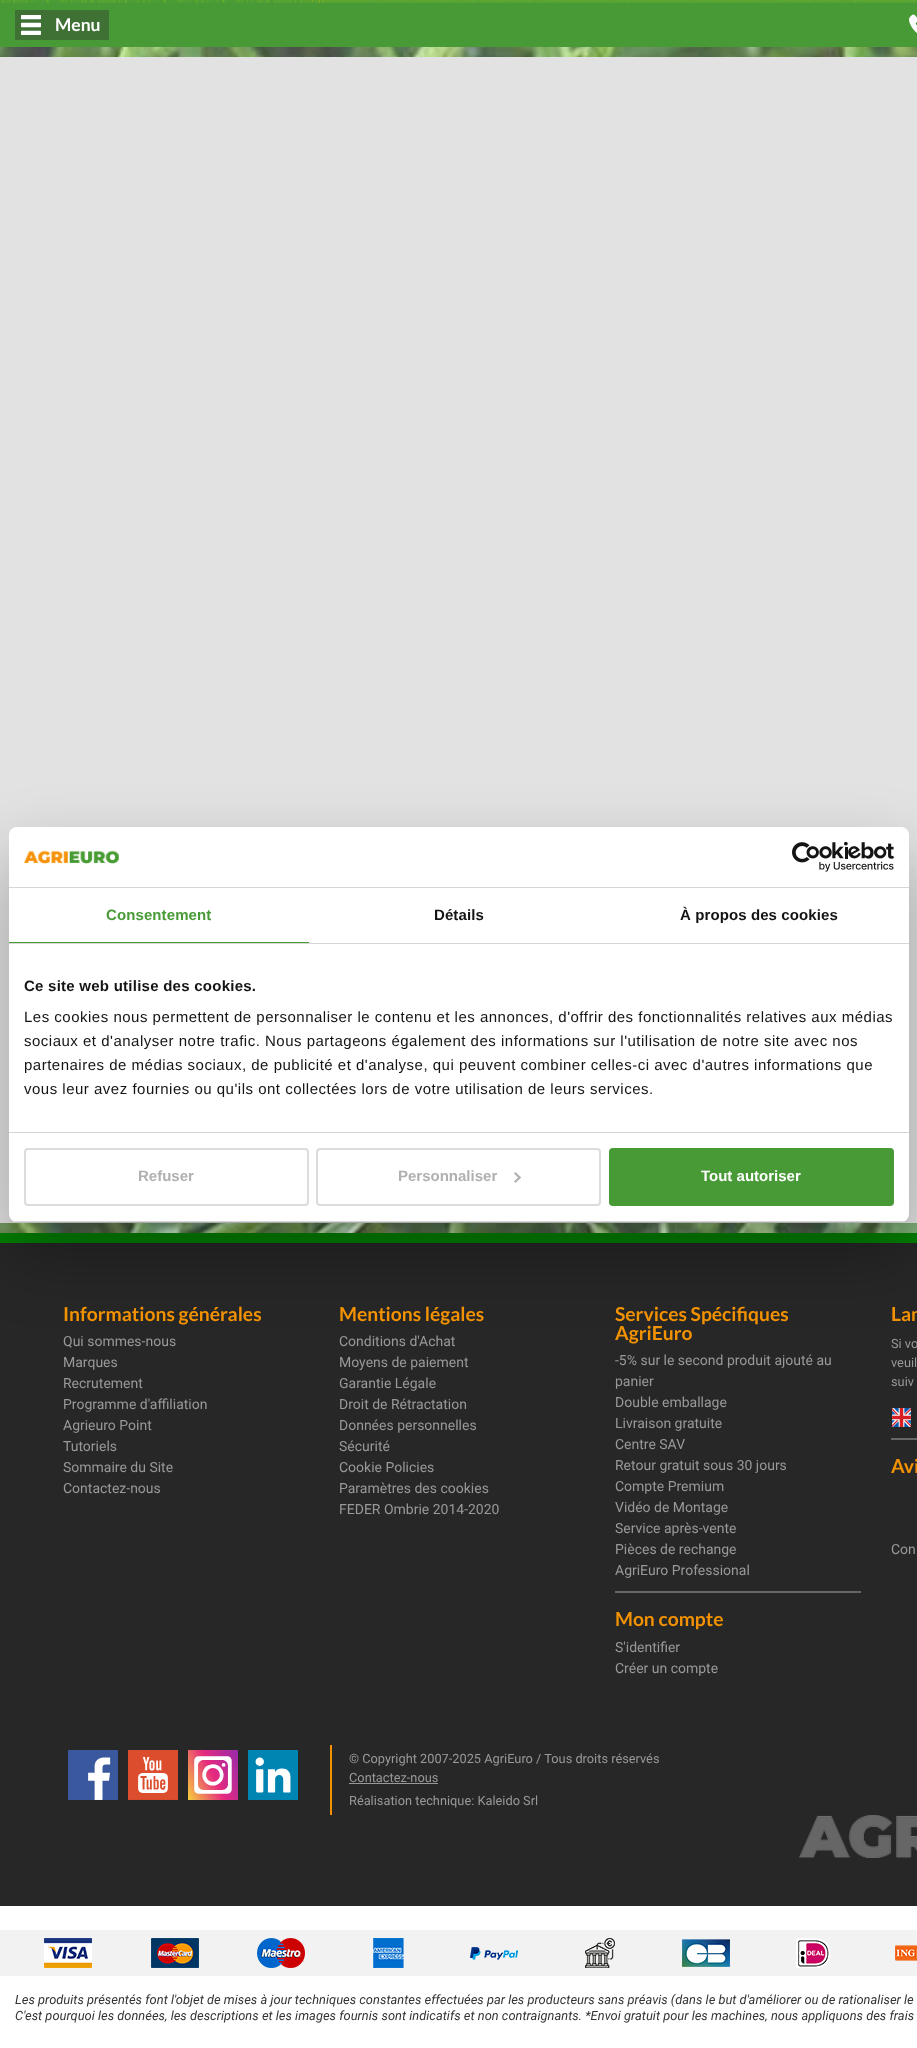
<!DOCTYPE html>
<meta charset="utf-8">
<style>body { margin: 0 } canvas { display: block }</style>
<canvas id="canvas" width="917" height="2048"></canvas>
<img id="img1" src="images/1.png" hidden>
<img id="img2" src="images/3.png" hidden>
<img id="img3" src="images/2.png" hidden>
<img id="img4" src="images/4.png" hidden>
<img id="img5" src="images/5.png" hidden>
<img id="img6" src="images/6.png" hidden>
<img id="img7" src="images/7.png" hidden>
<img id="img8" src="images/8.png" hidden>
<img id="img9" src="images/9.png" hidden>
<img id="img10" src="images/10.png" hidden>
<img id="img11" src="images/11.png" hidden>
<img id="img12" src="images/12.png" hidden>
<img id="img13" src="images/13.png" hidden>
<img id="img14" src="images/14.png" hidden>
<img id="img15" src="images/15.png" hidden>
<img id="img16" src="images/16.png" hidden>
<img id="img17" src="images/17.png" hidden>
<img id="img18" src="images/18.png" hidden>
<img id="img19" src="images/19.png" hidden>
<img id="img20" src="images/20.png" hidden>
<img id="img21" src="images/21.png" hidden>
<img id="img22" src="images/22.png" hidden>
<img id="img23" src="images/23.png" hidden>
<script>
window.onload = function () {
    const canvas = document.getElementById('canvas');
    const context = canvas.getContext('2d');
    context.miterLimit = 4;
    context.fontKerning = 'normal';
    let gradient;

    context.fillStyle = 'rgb(255, 255, 255)';
    context.fillRect(0, 0, 917, 2048);
    context.drawImage(document.getElementById('img1'), 0, 0, 27, 3);
    context.drawImage(document.getElementById('img2'), 312, 0, 595, 3);
    context.drawImage(document.getElementById('img3'), 27, 0, 890, 3);
    context.fillStyle = 'rgb(71, 154, 54)';
    context.fillRect(0, 3, 917, 44);
    context.fillStyle = 'rgb(63, 113, 52)';
    context.fillRect(15, 10, 94, 30);
    context.drawImage(document.getElementById('img4'), 21, 15, 20, 20);
    context.drawImage(document.getElementById('img5'), 909, 14, 8, 19);
    context.drawImage(document.getElementById('img6'), 0, 47, 917, 1186);
    context.fillStyle = 'rgb(226, 226, 226)';
    context.fillRect(0, 57, 917, 1166);
    context.fillStyle = 'rgb(0, 128, 0)';
    context.fillRect(0, 1233, 917, 10);
    context.fillStyle = 'rgb(39, 39, 39)';
    context.fillRect(0, 1243, 917, 663);
    context.fillStyle = 'rgba(0, 0, 0, 0.3)';
    context.filter = 'blur(34px)';
    context.beginPath();
    context.roundRect(9, 859, 900, 395, 8);
    context.fill();
    context.filter = 'none';
    context.fillStyle = 'rgb(255, 255, 255)';
    context.beginPath();
    context.roundRect(9, 827, 900, 395, 8);
    context.fill();
    context.fillStyle = 'rgb(214, 214, 214)';
    context.fillRect(9, 887, 900, 1);
    context.drawImage(document.getElementById('img7'), 24, 850, 95, 14);
    context.drawImage(document.getElementById('img8'), 792, 842, 102, 30);
    context.fillRect(9, 943, 900, 1);
    context.fillStyle = 'rgb(71, 154, 54)';
    context.fillRect(9, 942, 300, 1);
    context.fillStyle = 'rgb(214, 214, 214)';
    context.fillRect(9, 1132, 900, 1);
    context.save();
    context.beginPath();
    context.roundRect(9, 827, 900, 395, 8);
    context.clip();
    context.fillRect(9, 1221, 900, 1);
    context.restore();
    context.beginPath();
    context.roundRect(25, 1149, 283, 56, 3);
    context.strokeStyle = 'rgb(220, 220, 220)';
    context.lineWidth = 2;
    context.stroke();
    context.beginPath();
    context.roundRect(317, 1149, 283, 56, 3);
    context.stroke();
    context.fillStyle = 'rgb(176, 176, 176)';
    context.beginPath();
    context.moveTo(515.5, 1172);
    context.lineTo(521, 1177.5);
    context.lineTo(519.5, 1179);
    context.lineTo(514, 1173.5);
    context.closePath();
    context.fill();
    context.beginPath();
    context.moveTo(519.5, 1176);
    context.lineTo(521, 1177.5);
    context.lineTo(515.5, 1183);
    context.lineTo(514, 1181.5);
    context.closePath();
    context.fill();
    context.fillStyle = 'rgb(71, 154, 54)';
    context.beginPath();
    context.roundRect(610, 1149, 283, 56, 3);
    context.fill();
    context.strokeStyle = 'rgb(71, 154, 54)';
    context.stroke();
    context.drawImage(document.getElementById('img9'), 892, 1408, 19, 19);
    context.fillStyle = 'rgb(102, 102, 102)';
    context.fillRect(891, 1438, 26, 2);
    context.fillRect(615, 1591, 246, 2);
    context.drawImage(document.getElementById('img10'), 68, 1750, 50, 50);
    context.drawImage(document.getElementById('img11'), 128, 1750, 50, 50);
    gradient = context.createLinearGradient(243, 1761, 183, 1789);
    gradient.addColorStop(0, 'rgb(151, 42, 170)');
    gradient.addColorStop(0.5, 'rgb(229, 42, 127)');
    gradient.addColorStop(1, 'rgb(247, 207, 60)');
    context.fillStyle = gradient;
    context.fillRect(188, 1750, 50, 50);
    context.drawImage(document.getElementById('img12'), 194, 1756, 38, 38);
    context.drawImage(document.getElementById('img13'), 248, 1750, 50, 50);
    context.fillStyle = 'rgb(243, 146, 0)';
    context.fillRect(330, 1745, 2, 70);
    context.fillStyle = 'rgb(153, 153, 153)';
    context.fillRect(349, 1783, 89, 1);
    context.drawImage(document.getElementById('img14'), 799, 1815, 118, 43);
    context.fillStyle = 'rgb(242, 242, 242)';
    context.fillRect(0, 1930, 917, 46);
    context.drawImage(document.getElementById('img15'), 44, 1938, 48, 30);
    context.drawImage(document.getElementById('img16'), 151, 1938, 48, 30);
    context.drawImage(document.getElementById('img17'), 257, 1938, 48, 30);
    context.drawImage(document.getElementById('img18'), 373, 1938, 31, 30);
    context.drawImage(document.getElementById('img19'), 470, 1947, 48, 13);
    context.drawImage(document.getElementById('img20'), 585, 1938, 30, 30);
    context.drawImage(document.getElementById('img21'), 682, 1939, 48, 28);
    context.drawImage(document.getElementById('img22'), 796, 1938, 35, 30);
    context.drawImage(document.getElementById('img23'), 895, 1945, 22, 16);
    context.font = 'bold 17.5px Lato';
    context.fillStyle = 'rgb(255, 255, 255)';
    context.fillText('Menu', 55, 31);
    context.letterSpacing = '0.1px';
    context.font = 'bold 15px Liberation Sans';
    context.fillStyle = 'rgb(71, 154, 54)';
    context.fillText('Consentement', 106, 920);
    context.fillStyle = 'rgb(20, 20, 20)';
    context.fillText('Détails', 434, 920);
    context.fillText('À propos des cookies', 680, 920);
    context.letterSpacing = '0.25px';
    context.fillText('Ce site web utilise des cookies.', 24, 991);
    context.letterSpacing = '0.5px';
    context.font = '15px Liberation Sans';
    context.fillText('Les cookies nous permettent de personnaliser le contenu et les annonces, d\'offrir des fonctionnalités relatives aux médias', 24, 1022);
    context.fillText('sociaux et d\'analyser notre trafic. Nous partageons également des informations sur l\'utilisation de notre site avec nos', 24, 1046);
    context.fillText('partenaires de médias sociaux, de publicité et d\'analyse, qui peuvent combiner celles-ci avec d\'autres informations que', 24, 1070);
    context.fillText('vous leur avez fournies ou qu\'ils ont collectées lors de votre utilisation de leurs services.', 24, 1094);
    context.letterSpacing = '0px';
    context.font = 'bold 15px Liberation Sans';
    context.fillStyle = 'rgb(176, 176, 176)';
    context.fillText('Refuser', 138, 1181);
    context.fillText('Personnaliser', 398, 1181);
    context.fillStyle = 'rgb(255, 255, 255)';
    context.fillText('Tout autoriser', 701, 1181);
    context.font = 'bold 19.25px Lato';
    context.fillStyle = 'rgb(243, 146, 0)';
    context.fillText('Informations générales', 63, 1321);
    context.font = '14px Roboto';
    context.fillStyle = 'rgb(153, 153, 153)';
    context.fillText('Qui sommes-nous', 63, 1346);
    context.fillText('Marques', 63, 1367);
    context.fillText('Recrutement', 63, 1388);
    context.fillText('Programme d\'affiliation', 63, 1409);
    context.fillText('Agrieuro Point', 63, 1430);
    context.fillText('Tutoriels', 63, 1451);
    context.fillText('Sommaire du Site', 63, 1472);
    context.fillText('Contactez-nous', 63, 1493);
    context.font = 'bold 19.25px Lato';
    context.fillStyle = 'rgb(243, 146, 0)';
    context.fillText('Mentions légales', 339, 1321);
    context.font = '14px Roboto';
    context.fillStyle = 'rgb(153, 153, 153)';
    context.fillText('Conditions d\'Achat', 339, 1346);
    context.fillText('Moyens de paiement', 339, 1367);
    context.fillText('Garantie Légale', 339, 1388);
    context.fillText('Droit de Rétractation', 339, 1409);
    context.fillText('Données personnelles', 339, 1430);
    context.fillText('Sécurité', 339, 1451);
    context.fillText('Cookie Policies', 339, 1472);
    context.fillText('Paramètres des cookies', 339, 1493);
    context.fillText('FEDER Ombrie 2014-2020', 339, 1514);
    context.font = 'bold 19.25px Lato';
    context.fillStyle = 'rgb(243, 146, 0)';
    context.fillText('Services Spécifiques', 615, 1321);
    context.fillText('AgriEuro', 615, 1340);
    context.font = '14px Roboto';
    context.fillStyle = 'rgb(153, 153, 153)';
    context.fillText('-5% sur le second produit ajouté au', 615, 1365);
    context.fillText('panier', 615, 1386);
    context.fillText('Double emballage', 615, 1407);
    context.fillText('Livraison gratuite', 615, 1428);
    context.fillText('Centre SAV', 615, 1449);
    context.fillText('Retour gratuit sous 30 jours', 615, 1470);
    context.fillText('Compte Premium', 615, 1491);
    context.fillText('Vidéo de Montage', 615, 1512);
    context.fillText('Service après-vente', 615, 1533);
    context.fillText('Pièces de rechange', 615, 1554);
    context.fillText('AgriEuro Professional', 615, 1575);
    context.font = 'bold 19.25px Lato';
    context.fillStyle = 'rgb(243, 146, 0)';
    context.fillText('Lan', 891, 1321);
    context.font = '12.8px Roboto';
    context.fillStyle = 'rgb(153, 153, 153)';
    context.fillText('Si vo', 891, 1348);
    context.fillText('veuil', 891, 1367);
    context.fillText('suiv', 891, 1386);
    context.font = 'bold 19.25px Lato';
    context.fillStyle = 'rgb(243, 146, 0)';
    context.fillText('Avi', 891, 1473);
    context.font = '14px Roboto';
    context.fillStyle = 'rgb(153, 153, 153)';
    context.fillText('Con', 891, 1554);
    context.font = 'bold 19.25px Lato';
    context.fillStyle = 'rgb(243, 146, 0)';
    context.fillText('Mon compte', 615, 1626);
    context.font = '14px Roboto';
    context.fillStyle = 'rgb(153, 153, 153)';
    context.fillText('S\'identifier', 615, 1652);
    context.fillText('Créer un compte', 615, 1673);
    context.font = '12.8px Roboto';
    context.fillText('© Copyright 2007-2025 AgriEuro / Tous droits réservés', 349, 1763);
    context.fillText('Contactez-nous', 349, 1782);
    context.fillText('Réalisation technique: Kaleido Srl', 349, 1805);
    context.font = 'italic 12.8px Roboto';
    context.fillStyle = 'rgb(51, 51, 51)';
    context.fillText('Les produits présentés font l\'objet de mises à jour techniques constantes effectuées par les producteurs sans préavis (dans le but d\'améliorer ou de rationaliser le', 15, 2004);
    context.fillText('C\'est pourquoi les données, les descriptions et les images fournis sont indicatifs et non contraignants. *Envoi gratuit pour les machines, nous appliquons des frais', 15, 2020);
};
</script>
